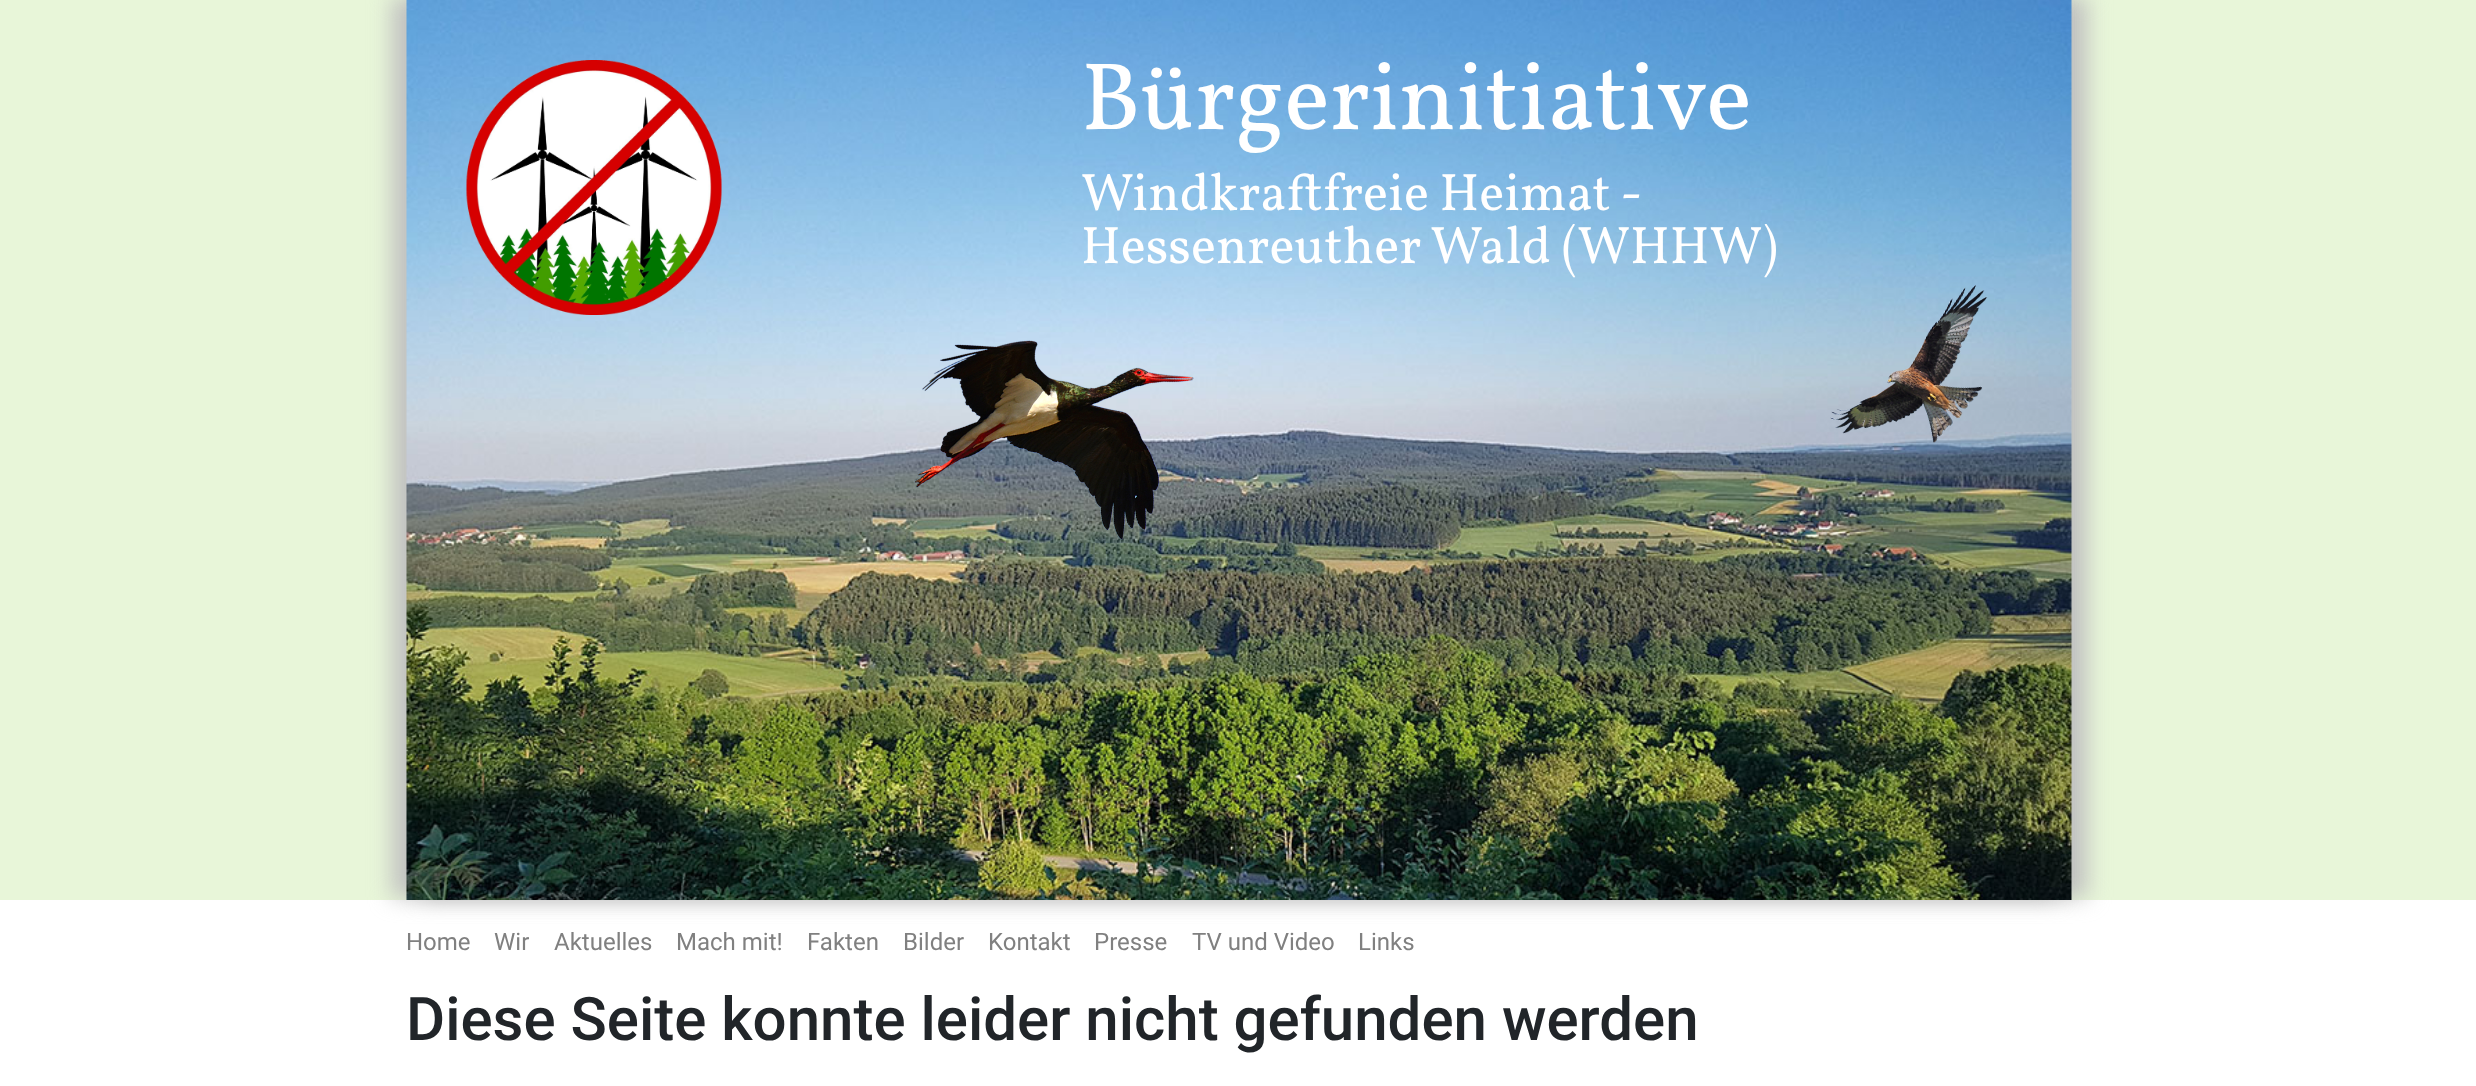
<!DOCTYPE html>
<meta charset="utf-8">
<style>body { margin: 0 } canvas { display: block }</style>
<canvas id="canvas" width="2476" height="1086"></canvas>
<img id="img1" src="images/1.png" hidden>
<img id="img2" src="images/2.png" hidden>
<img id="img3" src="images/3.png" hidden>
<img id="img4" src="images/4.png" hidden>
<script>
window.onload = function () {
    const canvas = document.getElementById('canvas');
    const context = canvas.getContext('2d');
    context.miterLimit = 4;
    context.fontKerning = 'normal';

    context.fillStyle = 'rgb(255, 255, 255)';
    context.fillRect(0, 0, 2476, 1086);
    context.fillStyle = 'rgb(232, 246, 217)';
    context.fillRect(0, 0, 2476, 900);
    context.fillStyle = 'rgb(192, 192, 192)';
    context.filter = 'blur(11px)';
    context.beginPath();
    context.rect(422, -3, 1665, 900);
    context.fill();
    context.filter = 'none';
    context.filter = 'blur(11px)';
    context.beginPath();
    context.rect(392, -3, 1665, 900);
    context.fill();
    context.filter = 'none';
    context.drawImage(document.getElementById('img1'), 406, 0, 1666, 900);
    context.drawImage(document.getElementById('img2'), 466, 60, 256, 255);
    context.drawImage(document.getElementById('img3'), 914, 340, 280, 200);
    context.drawImage(document.getElementById('img4'), 1830, 285, 158, 158);
    context.font = '96px Vollkorn';
    context.fillStyle = 'rgb(255, 255, 255)';
    context.fillText('Bürgerinitiative', 1081, 129);
    context.font = '52.75px Vollkorn';
    context.fillText('Windkraftfreie Heimat -', 1081, 210);
    context.fillText('Hessenreuther Wald (WHHW)', 1081, 263);
    context.font = '24px Roboto';
    context.fillStyle = 'rgb(128, 128, 128)';
    context.fillText('Home', 406, 950);
    context.fillText('Wir', 494, 950);
    context.fillText('Aktuelles', 554, 950);
    context.fillText('Mach mit!', 676, 950);
    context.fillText('Fakten', 807, 950);
    context.fillText('Bilder', 903, 950);
    context.fillText('Kontakt', 988, 950);
    context.fillText('Presse', 1094, 950);
    context.fillText('TV und Video', 1192, 950);
    context.fillText('Links', 1358, 950);
    context.font = '500 60px Roboto';
    context.fillStyle = 'rgb(33, 37, 41)';
    context.fillText('Diese Seite konnte leider nicht gefunden werden', 406, 1040);
};
</script>
